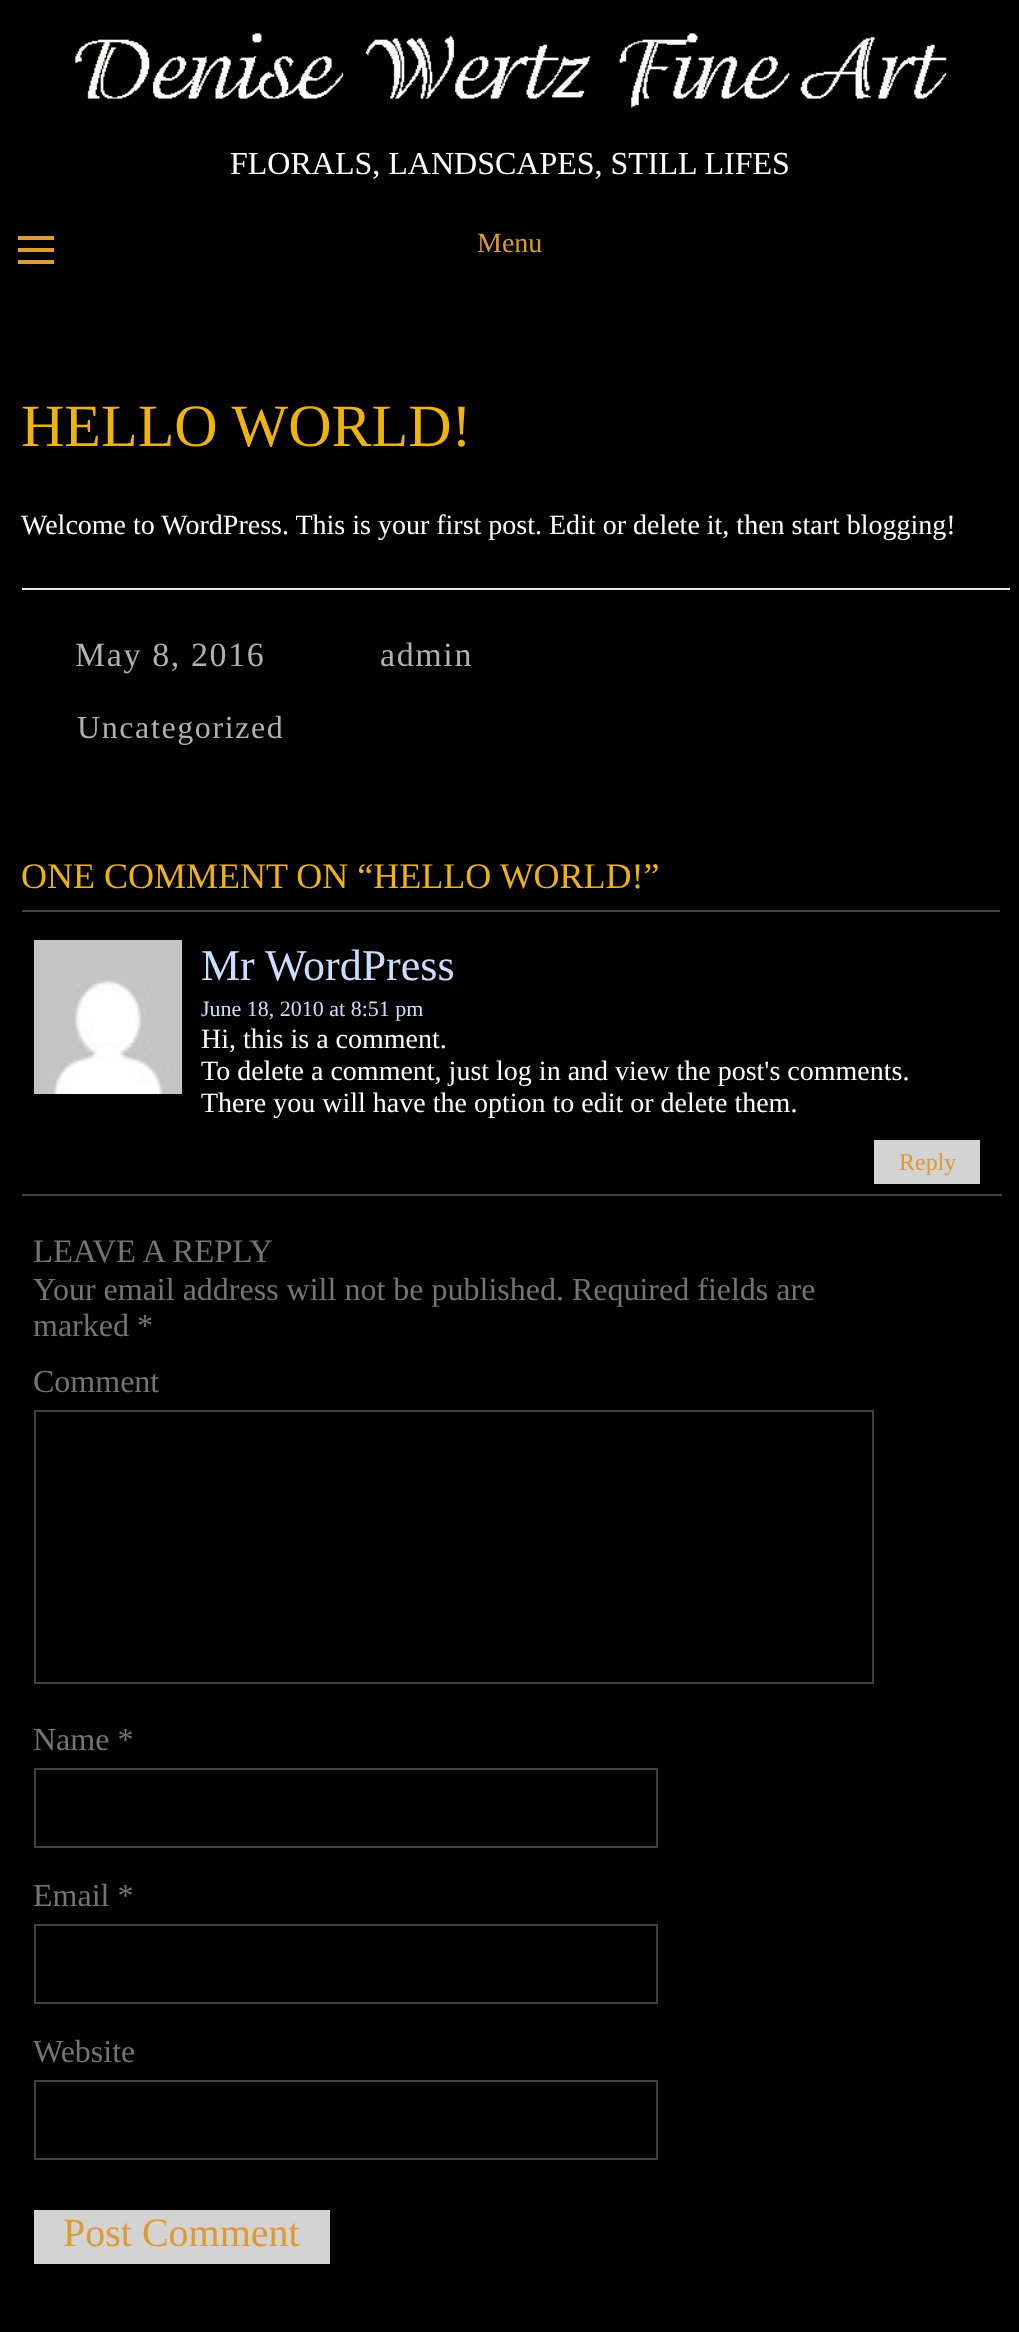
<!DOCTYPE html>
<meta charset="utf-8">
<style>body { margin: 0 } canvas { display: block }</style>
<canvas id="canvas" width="1019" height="2332"></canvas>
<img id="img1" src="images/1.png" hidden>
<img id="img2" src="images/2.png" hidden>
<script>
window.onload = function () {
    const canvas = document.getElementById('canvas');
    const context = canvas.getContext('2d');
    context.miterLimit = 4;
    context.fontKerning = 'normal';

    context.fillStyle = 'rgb(0, 0, 0)';
    context.fillRect(0, 0, 1019, 2332);
    context.drawImage(document.getElementById('img1'), 75, 33, 872, 75);
    context.fillStyle = 'rgb(221, 153, 51)';
    context.fillRect(18, 260, 36, 4);
    context.fillRect(18, 248, 36, 4);
    context.fillRect(18, 236, 36, 4);
    context.fillStyle = 'rgb(231, 231, 231)';
    context.fillRect(22, 588, 988, 2);
    context.fillStyle = 'rgb(65, 65, 65)';
    context.fillRect(22, 910, 978, 2);
    context.fillRect(22, 1194, 980, 2);
    context.drawImage(document.getElementById('img2'), 34, 940, 148, 154);
    context.fillStyle = 'rgb(211, 211, 211)';
    context.fillRect(874, 1140, 106, 44);
    context.strokeStyle = 'rgb(65, 65, 65)';
    context.lineWidth = 2;
    context.strokeRect(35, 1411, 838, 272);
    context.strokeRect(35, 1769, 622, 78);
    context.strokeRect(35, 1925, 622, 78);
    context.strokeRect(35, 2081, 622, 78);
    context.fillRect(34, 2210, 296, 54);
    context.font = '32px Liberation Serif';
    context.fillStyle = 'rgb(255, 255, 255)';
    context.fillText('FLORALS, LANDSCAPES, STILL LIFES', 230, 174);
    context.font = '28px Liberation Serif';
    context.fillStyle = 'rgb(221, 153, 51)';
    context.fillText('Menu', 477, 252);
    context.font = '60px Liberation Serif';
    context.fillStyle = 'rgb(239, 179, 14)';
    context.fillText('HELLO WORLD!', 21, 446);
    context.font = '28px Liberation Serif';
    context.fillStyle = 'rgb(255, 255, 255)';
    context.fillText('Welcome to WordPress. This is your first post. Edit or delete it, then start blogging!', 21, 534);
    context.letterSpacing = '1.6px';
    context.font = '34px Liberation Serif';
    context.fillStyle = 'rgb(178, 176, 176)';
    context.fillText('May 8, 2016', 75, 666);
    context.fillText('admin', 380, 666);
    context.font = '32px Liberation Serif';
    context.fillText('Uncategorized', 77, 738);
    context.letterSpacing = '0px';
    context.font = '36px Liberation Serif';
    context.fillStyle = 'rgb(239, 179, 14)';
    context.fillText('ONE COMMENT ON “HELLO WORLD!”', 21, 888);
    context.font = '44px Liberation Serif';
    context.fillStyle = 'rgb(204, 221, 255)';
    context.fillText('Mr WordPress', 201, 980);
    context.font = '22px Liberation Serif';
    context.fillText('June 18, 2010 at 8:51 pm', 201, 1016);
    context.font = '28px Liberation Serif';
    context.fillStyle = 'rgb(255, 255, 255)';
    context.fillText('Hi, this is a comment.', 201, 1048);
    context.fillText('To delete a comment, just log in and view the post\'s comments.', 201, 1080);
    context.fillText('There you will have the option to edit or delete them.', 201, 1112);
    context.font = '24px Liberation Serif';
    context.fillStyle = 'rgb(221, 153, 51)';
    context.fillText('Reply', 899, 1170);
    context.font = '32.75px Liberation Serif';
    context.fillStyle = 'rgb(116, 116, 116)';
    context.fillText('LEAVE A REPLY', 33, 1262);
    context.font = '32px Liberation Serif';
    context.fillText('Your email address will not be published. Required fields are', 33, 1300);
    context.fillText('marked *', 33, 1336);
    context.fillText('Comment', 33, 1392);
    context.fillText('Name *', 33, 1750);
    context.fillText('Email *', 33, 1906);
    context.fillText('Website', 33, 2062);
    context.font = '40px Liberation Serif';
    context.fillStyle = 'rgb(221, 153, 51)';
    context.fillText('Post Comment', 63, 2246);
};
</script>
